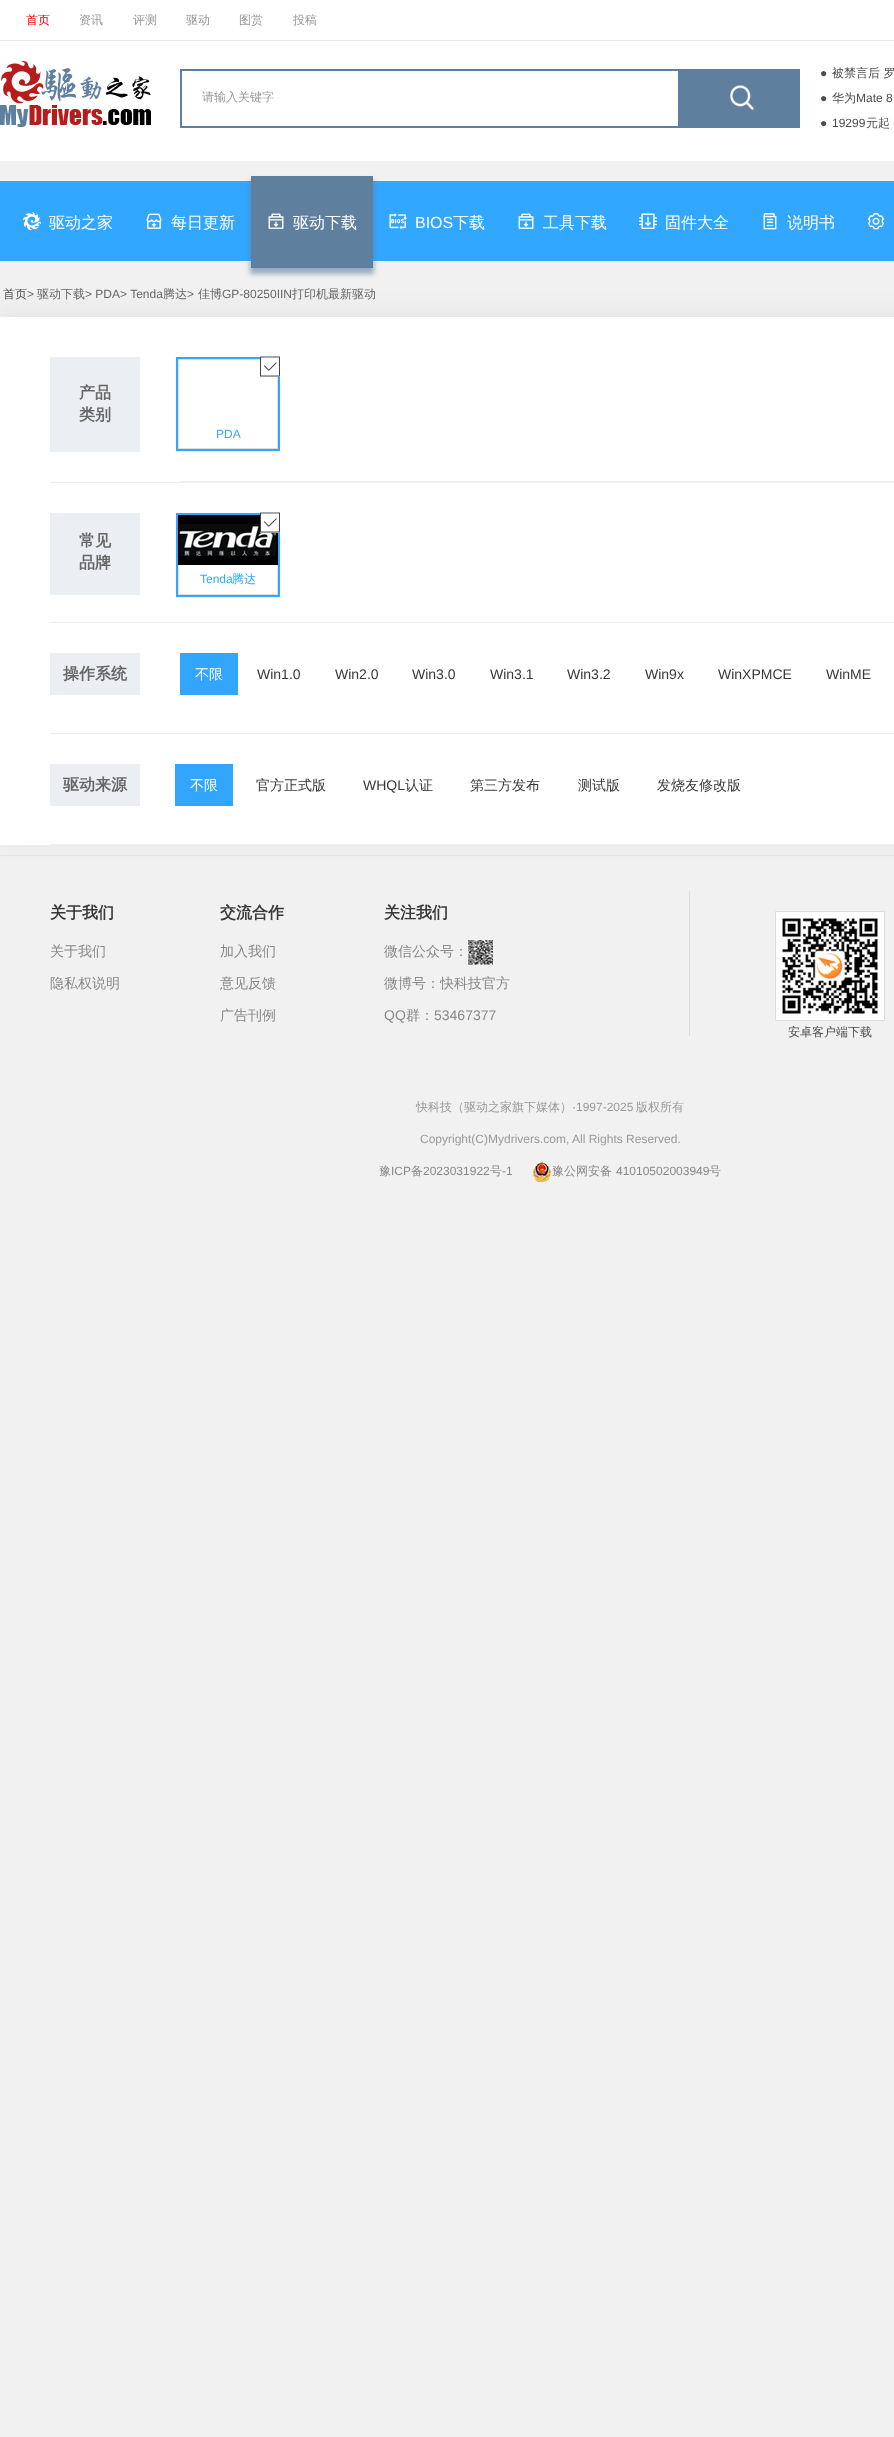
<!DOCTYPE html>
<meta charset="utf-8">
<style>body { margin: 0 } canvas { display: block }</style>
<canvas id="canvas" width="894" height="2437"></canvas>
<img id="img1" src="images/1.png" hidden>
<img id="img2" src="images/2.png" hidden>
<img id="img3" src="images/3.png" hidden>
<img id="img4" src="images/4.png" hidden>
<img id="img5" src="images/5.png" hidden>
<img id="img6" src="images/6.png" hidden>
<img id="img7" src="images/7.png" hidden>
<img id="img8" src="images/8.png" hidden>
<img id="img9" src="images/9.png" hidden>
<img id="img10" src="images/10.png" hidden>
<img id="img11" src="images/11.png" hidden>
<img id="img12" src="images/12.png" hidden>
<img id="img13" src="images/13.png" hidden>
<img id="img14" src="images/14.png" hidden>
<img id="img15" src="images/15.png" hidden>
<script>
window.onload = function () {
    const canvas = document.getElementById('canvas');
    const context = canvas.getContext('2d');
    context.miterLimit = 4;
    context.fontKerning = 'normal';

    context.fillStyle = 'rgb(241, 241, 241)';
    context.fillRect(0, 0, 894, 2437);
    context.fillStyle = 'rgb(255, 255, 255)';
    context.fillRect(0, 0, 894, 40);
    context.fillStyle = 'rgb(231, 231, 231)';
    context.fillRect(0, 40, 894, 1);
    context.fillStyle = 'rgb(255, 255, 255)';
    context.fillRect(0, 41, 894, 120);
    context.drawImage(document.getElementById('img1'), 0, 61, 151, 66);
    context.strokeStyle = 'rgb(95, 127, 159)';
    context.lineWidth = 2;
    context.strokeRect(181, 70, 618, 57);
    context.fillStyle = 'rgb(95, 127, 159)';
    context.fillRect(678, 71, 120, 55);
    context.drawImage(document.getElementById('img2'), 730, 85, 24, 25);
    context.fillStyle = 'rgb(50, 167, 255)';
    context.fillRect(0, 181, 894, 80);
    context.drawImage(document.getElementById('img3'), 23, 212, 18, 19);
    context.drawImage(document.getElementById('img4'), 146, 213, 16, 16);
    context.fillStyle = 'rgba(95, 127, 159, 0.6)';
    context.filter = 'blur(2.5px)';
    context.beginPath();
    context.rect(250, 180, 124, 94);
    context.fill();
    context.filter = 'none';
    context.fillStyle = 'rgb(95, 127, 159)';
    context.fillRect(251, 176, 122, 92);
    context.drawImage(document.getElementById('img5'), 268, 213, 16, 16);
    context.drawImage(document.getElementById('img6'), 389, 213, 18, 16);
    context.drawImage(document.getElementById('img7'), 518, 213, 16, 16);
    context.drawImage(document.getElementById('img8'), 639, 213, 18, 16);
    context.drawImage(document.getElementById('img9'), 763, 213, 14, 17);
    context.drawImage(document.getElementById('img10'), 868, 213, 16, 17);
    context.fillStyle = 'rgb(232, 232, 232)';
    context.fillRect(0, 855, 894, 1);
    context.fillStyle = 'rgba(0, 0, 0, 0.05)';
    context.filter = 'blur(12.5px)';
    context.beginPath();
    context.rect(-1, 312, 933, 530);
    context.fill();
    context.filter = 'none';
    context.fillStyle = 'rgb(255, 255, 255)';
    context.fillRect(0, 317, 894, 528);
    context.fillStyle = 'rgb(239, 239, 239)';
    context.fillRect(50, 482, 844, 1);
    context.fillStyle = 'rgb(235, 238, 242)';
    context.fillRect(50, 357, 90, 95);
    context.strokeStyle = 'rgb(50, 167, 255)';
    context.strokeRect(177, 358, 102, 92);
    context.strokeStyle = 'rgb(221, 221, 221)';
    context.lineWidth = 1;
    context.strokeRect(178.5, 359.5, 99, 89);
    context.fillStyle = 'rgb(255, 255, 255)';
    context.fillRect(260, 357, 20, 20);
    context.drawImage(document.getElementById('img11'), 260, 356, 20, 21);
    context.fillStyle = 'rgb(239, 239, 239)';
    context.fillRect(180, 481, 714, 1);
    context.fillRect(50, 622, 844, 1);
    context.fillStyle = 'rgb(235, 238, 242)';
    context.fillRect(50, 513, 90, 82);
    context.strokeStyle = 'rgb(50, 167, 255)';
    context.lineWidth = 2;
    context.strokeRect(177, 514, 102, 82);
    context.drawImage(document.getElementById('img12'), 178, 515, 100, 50);
    context.fillStyle = 'rgb(255, 255, 255)';
    context.fillRect(260, 513, 20, 20);
    context.drawImage(document.getElementById('img11'), 260, 512, 20, 21);
    context.fillStyle = 'rgb(221, 221, 221)';
    context.fillRect(277, 565, 1, 30);
    context.fillRect(178, 594, 100, 1);
    context.fillRect(178, 565, 1, 30);
    context.fillStyle = 'rgb(239, 239, 239)';
    context.fillRect(50, 733, 844, 1);
    context.fillStyle = 'rgb(235, 238, 242)';
    context.fillRect(50, 653, 90, 42);
    context.fillStyle = 'rgb(50, 166, 253)';
    context.fillRect(180, 653, 58, 42);
    context.fillStyle = 'rgb(239, 239, 239)';
    context.fillRect(50, 844, 844, 1);
    context.fillStyle = 'rgb(235, 238, 242)';
    context.fillRect(50, 764, 90, 42);
    context.fillStyle = 'rgb(50, 166, 253)';
    context.fillRect(175, 764, 58, 42);
    context.drawImage(document.getElementById('img13'), 468, 940, 25, 25);
    context.fillStyle = 'rgb(221, 221, 221)';
    context.fillRect(689, 891, 1, 145);
    context.fillStyle = 'rgb(255, 255, 255)';
    context.beginPath();
    context.rect(775.5, 911.5, 109, 109);
    context.fill();
    context.strokeStyle = 'rgb(221, 221, 221)';
    context.lineWidth = 1;
    context.stroke();
    context.drawImage(document.getElementById('img14'), 782, 918, 96, 96);
    context.drawImage(document.getElementById('img15'), 533, 1162, 18, 20);
    context.font = '500 12px WenQuanYi Zen Hei';
    context.fillStyle = 'rgb(255, 0, 0)';
    context.fillText('首页', 26, 24);
    context.fillStyle = 'rgb(153, 153, 153)';
    context.fillText('资讯', 79, 24);
    context.fillText('评测', 133, 24);
    context.fillText('驱动', 186, 24);
    context.fillText('图赏', 239, 24);
    context.fillText('投稿', 293, 24);
    context.fillText('请输入关键字', 202, 101);
    context.font = '12px Liberation Sans';
    context.fillStyle = 'rgb(76, 76, 76)';
    context.fillText('●', 820, 77);
    context.font = '500 12px WenQuanYi Zen Hei';
    context.fillText('被禁言后 罗', 832, 77);
    context.font = '12px Liberation Sans';
    context.fillText('●', 820, 102);
    context.font = '500 12px WenQuanYi Zen Hei';
    context.fillText('华为', 832, 102);
    context.font = '12px Liberation Sans';
    context.fillText('Mate 8', 856, 102);
    context.fillText('●', 820, 127);
    context.fillText('19299', 832, 127);
    context.font = '500 12px WenQuanYi Zen Hei';
    context.fillText('元起', 866, 127);
    context.font = '500 16px WenQuanYi Zen Hei';
    context.fillStyle = 'rgb(255, 255, 255)';
    context.fillText('驱动之家', 49, 228);
    context.fillText('每日更新', 171, 228);
    context.fillText('驱动下载', 293, 228);
    context.font = '16px Liberation Sans';
    context.fillText('BIOS', 415, 228);
    context.font = '500 16px WenQuanYi Zen Hei';
    context.fillText('下载', 453, 228);
    context.fillText('工具下载', 543, 228);
    context.fillText('固件大全', 665, 228);
    context.fillText('说明书', 787, 228);
    context.font = '500 12px WenQuanYi Zen Hei';
    context.fillStyle = 'rgb(76, 76, 76)';
    context.fillText('首页', 3, 298);
    context.font = '12px Liberation Sans';
    context.fillStyle = 'rgb(102, 102, 102)';
    context.fillText('>', 27, 298);
    context.font = '500 12px WenQuanYi Zen Hei';
    context.fillText('驱动下载', 37, 298);
    context.font = '12px Liberation Sans';
    context.fillText('> PDA> Tenda', 85, 298);
    context.font = '500 12px WenQuanYi Zen Hei';
    context.fillText('腾达', 163, 298);
    context.font = '12px Liberation Sans';
    context.fillText('>', 187, 298);
    context.font = '500 12px WenQuanYi Zen Hei';
    context.fillText('佳博', 198, 298);
    context.font = '12px Liberation Sans';
    context.fillText('GP-80250IIN', 222, 298);
    context.font = '500 12px WenQuanYi Zen Hei';
    context.fillText('打印机最新驱动', 292, 298);
    context.font = 'bold 16px WenQuanYi Zen Hei';
    context.fillText('产品', 79, 398);
    context.fillText('类别', 79, 420);
    context.font = '12px Liberation Sans';
    context.fillStyle = 'rgb(50, 167, 255)';
    context.fillText('PDA', 216, 438);
    context.font = 'bold 16px WenQuanYi Zen Hei';
    context.fillStyle = 'rgb(102, 102, 102)';
    context.fillText('常见', 79, 546);
    context.fillText('品牌', 79, 568);
    context.font = '12px Liberation Sans';
    context.fillStyle = 'rgb(50, 167, 255)';
    context.fillText('Tenda', 200, 583);
    context.font = '500 12px WenQuanYi Zen Hei';
    context.fillText('腾达', 232, 583);
    context.font = 'bold 16px WenQuanYi Zen Hei';
    context.fillStyle = 'rgb(102, 102, 102)';
    context.fillText('操作系统', 63, 679);
    context.font = '500 14px WenQuanYi Zen Hei';
    context.fillStyle = 'rgb(255, 255, 255)';
    context.fillText('不限', 195, 679);
    context.font = '14px Liberation Sans';
    context.fillStyle = 'rgb(56, 56, 56)';
    context.fillText('Win1.0', 257, 679);
    context.fillText('Win2.0', 335, 679);
    context.fillText('Win3.0', 412, 679);
    context.fillText('Win3.1', 490, 679);
    context.fillText('Win3.2', 567, 679);
    context.fillText('Win9x', 645, 679);
    context.fillText('WinXPMCE', 718, 679);
    context.fillText('WinME', 826, 679);
    context.font = 'bold 16px WenQuanYi Zen Hei';
    context.fillStyle = 'rgb(102, 102, 102)';
    context.fillText('驱动来源', 63, 790);
    context.font = '500 14px WenQuanYi Zen Hei';
    context.fillStyle = 'rgb(255, 255, 255)';
    context.fillText('不限', 190, 790);
    context.fillStyle = 'rgb(56, 56, 56)';
    context.fillText('官方正式版', 256, 790);
    context.font = '14px Liberation Sans';
    context.fillText('WHQL', 363, 790);
    context.font = '500 14px WenQuanYi Zen Hei';
    context.fillText('认证', 405, 790);
    context.fillText('第三方发布', 470, 790);
    context.fillText('测试版', 578, 790);
    context.fillText('发烧友修改版', 657, 790);
    context.font = 'bold 16px WenQuanYi Zen Hei';
    context.fillText('关于我们', 50, 918);
    context.font = '500 14px WenQuanYi Zen Hei';
    context.fillStyle = 'rgb(136, 136, 136)';
    context.fillText('关于我们', 50, 956);
    context.fillText('隐私权说明', 50, 988);
    context.font = 'bold 16px WenQuanYi Zen Hei';
    context.fillStyle = 'rgb(56, 56, 56)';
    context.fillText('交流合作', 220, 918);
    context.font = '500 14px WenQuanYi Zen Hei';
    context.fillStyle = 'rgb(136, 136, 136)';
    context.fillText('加入我们', 220, 956);
    context.fillText('意见反馈', 220, 988);
    context.fillText('广告刊例', 220, 1020);
    context.font = 'bold 16px WenQuanYi Zen Hei';
    context.fillStyle = 'rgb(56, 56, 56)';
    context.fillText('关注我们', 384, 918);
    context.font = '500 14px WenQuanYi Zen Hei';
    context.fillStyle = 'rgb(136, 136, 136)';
    context.fillText('微信公众号：', 384, 956);
    context.fillText('微博号：快科技官方', 384, 988);
    context.font = '14px Liberation Sans';
    context.fillText('QQ', 384, 1020);
    context.font = '500 14px WenQuanYi Zen Hei';
    context.fillText('群：', 406, 1020);
    context.font = '14px Liberation Sans';
    context.fillText('53467377', 434, 1020);
    context.font = '500 12px WenQuanYi Zen Hei';
    context.fillStyle = 'rgb(76, 76, 76)';
    context.fillText('安卓客户端下载', 788, 1036);
    context.fillStyle = 'rgb(153, 153, 153)';
    context.fillText('快科技（驱动之家旗下媒体）', 416, 1111);
    context.font = '12px Liberation Sans';
    context.fillText('·1997-2025', 572, 1111);
    context.font = '500 12px WenQuanYi Zen Hei';
    context.fillText('版权所有', 636, 1111);
    context.font = '12px Liberation Sans';
    context.fillText('Copyright(C)Mydrivers.com, All Rights Reserved.', 420, 1143);
    context.font = '500 12px WenQuanYi Zen Hei';
    context.fillStyle = 'rgb(136, 136, 136)';
    context.fillText('豫', 379, 1175);
    context.font = '12px Liberation Sans';
    context.fillText('ICP', 391, 1175);
    context.font = '500 12px WenQuanYi Zen Hei';
    context.fillText('备', 411, 1175);
    context.font = '12px Liberation Sans';
    context.fillText('2023031922', 423, 1175);
    context.font = '500 12px WenQuanYi Zen Hei';
    context.fillText('号', 490, 1175);
    context.font = '12px Liberation Sans';
    context.fillText('-1', 502, 1175);
    context.font = '500 12px WenQuanYi Zen Hei';
    context.fillText('豫公网安备', 552, 1175);
    context.font = '12px Liberation Sans';
    context.fillText('41010502003949', 616, 1175);
    context.font = '500 12px WenQuanYi Zen Hei';
    context.fillText('号', 709, 1175);
};
</script>
